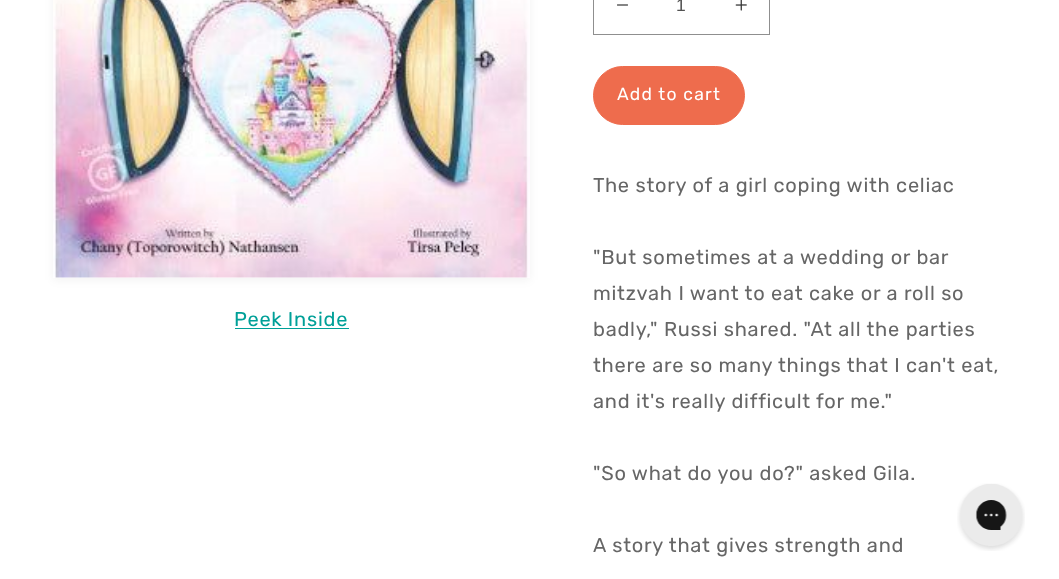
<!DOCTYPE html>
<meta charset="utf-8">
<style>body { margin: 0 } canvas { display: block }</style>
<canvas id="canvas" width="1059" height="579"></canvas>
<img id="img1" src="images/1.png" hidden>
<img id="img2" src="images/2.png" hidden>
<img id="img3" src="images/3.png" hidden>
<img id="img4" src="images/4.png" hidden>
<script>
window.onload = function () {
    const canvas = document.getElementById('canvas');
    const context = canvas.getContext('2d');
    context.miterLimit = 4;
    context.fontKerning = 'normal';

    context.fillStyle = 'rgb(255, 255, 255)';
    context.fillRect(0, 0, 1059, 579);
    context.fillStyle = 'rgba(0, 0, 0, 0.05)';
    context.filter = 'blur(5px)';
    context.beginPath();
    context.rect(53, -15, 477, 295);
    context.fill();
    context.filter = 'none';
    context.fillStyle = 'rgb(255, 255, 255)';
    context.fillRect(53, 277, 477, 1);
    context.drawImage(document.getElementById('img1'), 53, 0, 477, 278);
    context.fillStyle = 'rgb(0, 160, 152)';
    context.fillRect(235, 328, 114, 1);
    context.drawImage(document.getElementById('img2'), 617, 4, 11, 2);
    context.drawImage(document.getElementById('img3'), 735, 0, 12, 11);
    context.strokeStyle = 'rgb(143, 143, 143)';
    context.strokeRect(593.5, -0.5, 176, 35);
    context.fillStyle = 'rgb(238, 108, 77)';
    context.beginPath();
    context.roundRect(593.5, 66.5, 151, 58, 29);
    context.fill();
    context.strokeStyle = 'rgb(238, 108, 77)';
    context.stroke();
    context.drawImage(document.getElementById('img4'), 957, 483, 68, 68);
    context.letterSpacing = '0.75px';
    context.font = '20px Rubik';
    context.fillStyle = 'rgb(0, 160, 152)';
    context.fillText('Peek Inside', 234, 326);
    context.letterSpacing = '0px';
    context.font = '17.5px Liberation Sans';
    context.fillStyle = 'rgb(82, 82, 82)';
    context.fillText('1', 676, 11);
    context.letterSpacing = '1.25px';
    context.font = '17.5px Rubik';
    context.fillStyle = 'rgb(255, 255, 255)';
    context.fillText('Add to cart', 617, 100);
    context.letterSpacing = '0.75px';
    context.font = '20px Rubik';
    context.fillStyle = 'rgb(102, 102, 102)';
    context.fillText('The story of a girl coping with celiac', 593, 192);
    context.fillText('"But sometimes at a wedding or bar', 593, 264);
    context.fillText('mitzvah I want to eat cake or a roll so', 593, 300);
    context.fillText('badly," Russi shared. "At all the parties', 593, 336);
    context.fillText('there are so many things that I can\'t eat,', 593, 372);
    context.fillText('and it\'s really difficult for me."', 593, 408);
    context.fillText('"So what do you do?" asked Gila.', 593, 480);
    context.fillText('A story that gives strength and', 593, 552);
};
</script>
